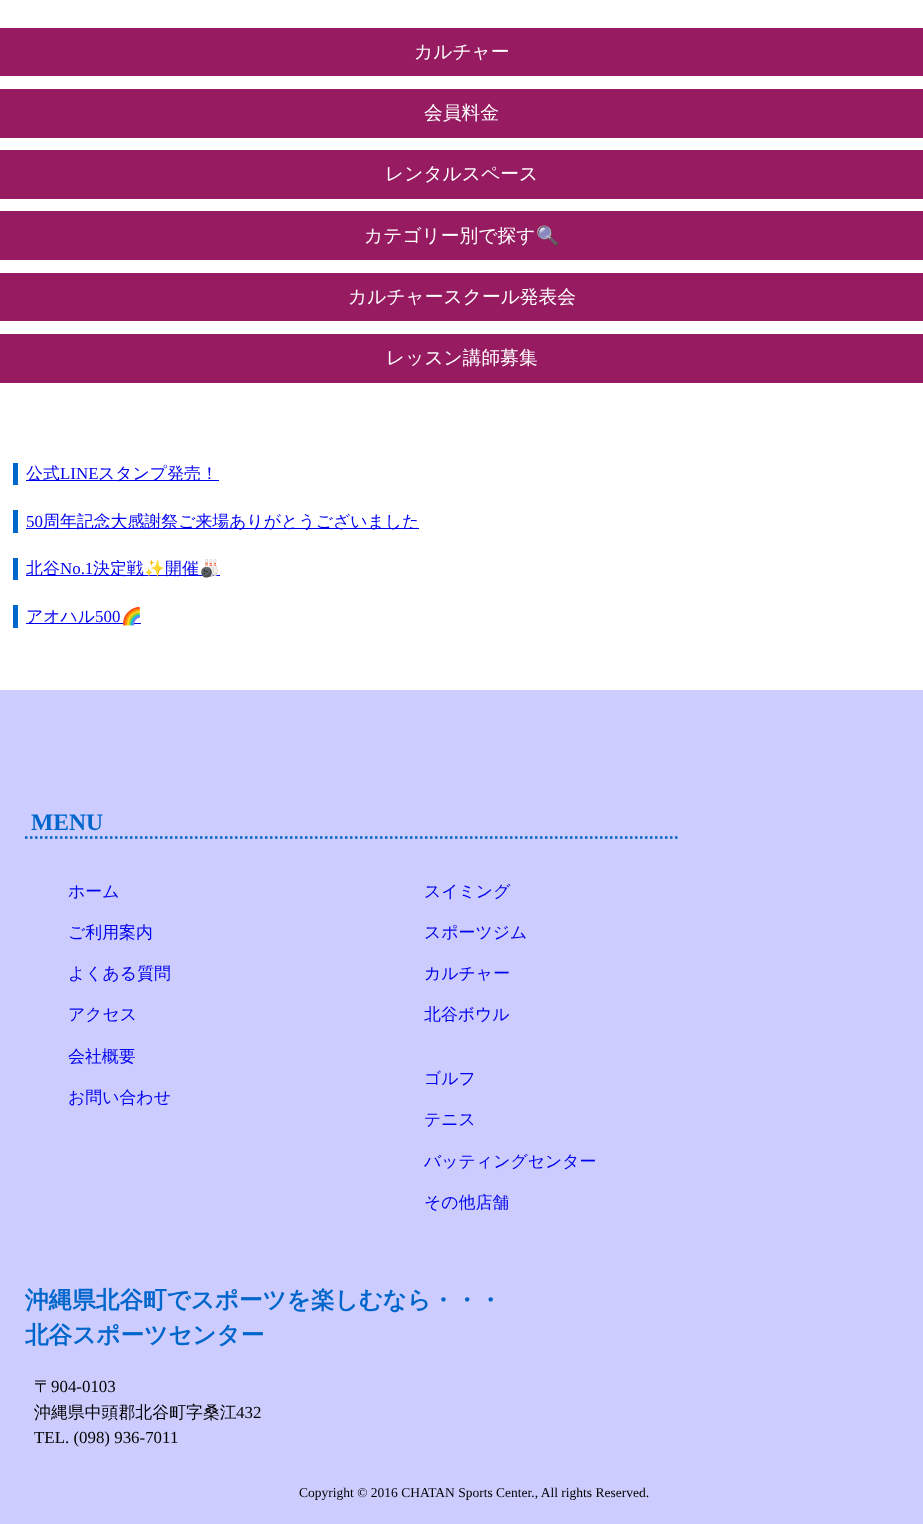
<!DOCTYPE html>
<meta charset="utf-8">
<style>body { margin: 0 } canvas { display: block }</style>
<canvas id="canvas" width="923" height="1524"></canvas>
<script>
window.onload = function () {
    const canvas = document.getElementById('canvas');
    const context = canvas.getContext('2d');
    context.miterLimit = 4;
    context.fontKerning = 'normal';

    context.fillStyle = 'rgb(255, 255, 255)';
    context.fillRect(0, 0, 923, 1524);
    context.fillStyle = 'rgb(151, 27, 97)';
    context.fillRect(0, 28, 923, 48);
    context.fillRect(0, 89, 923, 49);
    context.fillRect(0, 150, 923, 49);
    context.fillRect(0, 211, 923, 49);
    context.fillRect(0, 273, 923, 48);
    context.fillRect(0, 334, 923, 49);
    context.fillStyle = 'rgb(0, 102, 204)';
    context.fillRect(13, 463, 5, 22);
    context.fillStyle = 'rgb(0, 0, 238)';
    context.fillRect(26, 480, 193, 1);
    context.fillStyle = 'rgb(0, 102, 204)';
    context.fillRect(13, 510, 5, 23);
    context.fillStyle = 'rgb(0, 0, 238)';
    context.fillRect(26, 528, 393, 1);
    context.fillStyle = 'rgb(0, 102, 204)';
    context.fillRect(13, 558, 5, 22);
    context.fillStyle = 'rgb(0, 0, 238)';
    context.fillRect(26, 575, 194, 1);
    context.fillStyle = 'rgb(0, 102, 204)';
    context.fillRect(13, 605, 5, 23);
    context.fillStyle = 'rgb(0, 0, 238)';
    context.fillRect(26, 623, 115, 1);
    context.fillStyle = 'rgb(204, 204, 255)';
    context.fillRect(0, 690, 923, 834);
    context.beginPath();
    context.moveTo(25, 837.5);
    context.lineTo(679, 837.5);
    context.strokeStyle = 'rgb(0, 102, 204)';
    context.lineWidth = 2.5;
    context.setLineDash([2.5, 2.5]);
    context.stroke();
    context.font = '500 18.75px WenQuanYi Zen Hei';
    context.fillStyle = 'rgb(255, 255, 255)';
    context.fillText('カルチャー', 414, 58);
    context.fillText('会員料金', 424, 119);
    context.fillText('レンタルスペース', 385, 180);
    context.fillText('カテゴリー別で探す', 364, 242);
    context.font = '18.75px Noto Color Emoji';
    context.fillText('🔍', 536, 242);
    context.font = '500 18.75px WenQuanYi Zen Hei';
    context.fillText('カルチャースクール発表会', 348, 303);
    context.fillText('レッスン講師募集', 386, 364);
    context.font = '500 16.9px WenQuanYi Zen Hei';
    context.fillStyle = 'rgb(0, 0, 238)';
    context.fillText('公式', 26, 479);
    context.font = '16.9px Liberation Serif';
    context.fillText('LINE', 60, 479);
    context.font = '500 16.9px WenQuanYi Zen Hei';
    context.fillText('スタンプ発売！', 98, 479);
    context.font = '16.9px Liberation Serif';
    context.fillText('50', 26, 527);
    context.font = '500 16.9px WenQuanYi Zen Hei';
    context.fillText('周年記念大感謝祭ご来場ありがとうございました', 43, 527);
    context.fillText('北谷', 26, 574);
    context.font = '16.9px Liberation Serif';
    context.fillText('No.1', 60, 574);
    context.font = '500 16.9px WenQuanYi Zen Hei';
    context.fillText('決定戦', 93, 574);
    context.font = '16.9px Noto Color Emoji';
    context.fillText('✨', 144, 574);
    context.font = '500 16.9px WenQuanYi Zen Hei';
    context.fillText('開催', 165, 574);
    context.font = '16.9px Noto Color Emoji';
    context.fillText('🎳', 199, 574);
    context.font = '500 16.9px WenQuanYi Zen Hei';
    context.fillText('アオハル', 26, 622);
    context.font = '16.9px Liberation Serif';
    context.fillText('500', 95, 622);
    context.font = '16.9px Noto Color Emoji';
    context.fillText('🌈', 121, 622);
    context.font = 'bold 23.6px Liberation Serif';
    context.fillStyle = 'rgb(0, 102, 204)';
    context.fillText('MENU', 31, 830);
    context.font = '500 16.9px WenQuanYi Zen Hei';
    context.fillStyle = 'rgb(0, 0, 238)';
    context.fillText('ホーム', 68, 897);
    context.fillText('ご利用案内', 68, 938);
    context.fillText('よくある質問', 68, 979);
    context.fillText('アクセス', 68, 1020);
    context.fillText('会社概要', 68, 1062);
    context.fillText('お問い合わせ', 68, 1103);
    context.fillText('スイミング', 424, 897);
    context.fillText('スポーツジム', 424, 938);
    context.fillText('カルチャー', 424, 979);
    context.fillText('北谷ボウル', 424, 1020);
    context.fillText('ゴルフ', 424, 1084);
    context.fillText('テニス', 424, 1125);
    context.fillText('バッティングセンター', 424, 1167);
    context.fillText('その他店舗', 424, 1208);
    context.font = 'bold 23.6px WenQuanYi Zen Hei';
    context.fillStyle = 'rgb(0, 102, 204)';
    context.fillText('沖縄県北谷町でスポーツを楽しむなら・・・', 25, 1308);
    context.fillText('北谷スポーツセンター', 25, 1343);
    context.font = '500 16.9px WenQuanYi Zen Hei';
    context.fillStyle = 'rgb(0, 0, 0)';
    context.fillText('〒', 34, 1392);
    context.font = '16.9px Liberation Serif';
    context.fillText('904-0103', 51, 1392);
    context.font = '500 16.9px WenQuanYi Zen Hei';
    context.fillText('沖縄県中頭郡北谷町字桑江', 34, 1418);
    context.font = '16.9px Liberation Serif';
    context.fillText('432', 236, 1418);
    context.fillText('TEL. (098) 936-7011', 34, 1443);
    context.font = '13.5px Liberation Serif';
    context.fillText('Copyright © 2016 CHATAN Sports Center., All rights Reserved.', 299, 1497);
};
</script>
